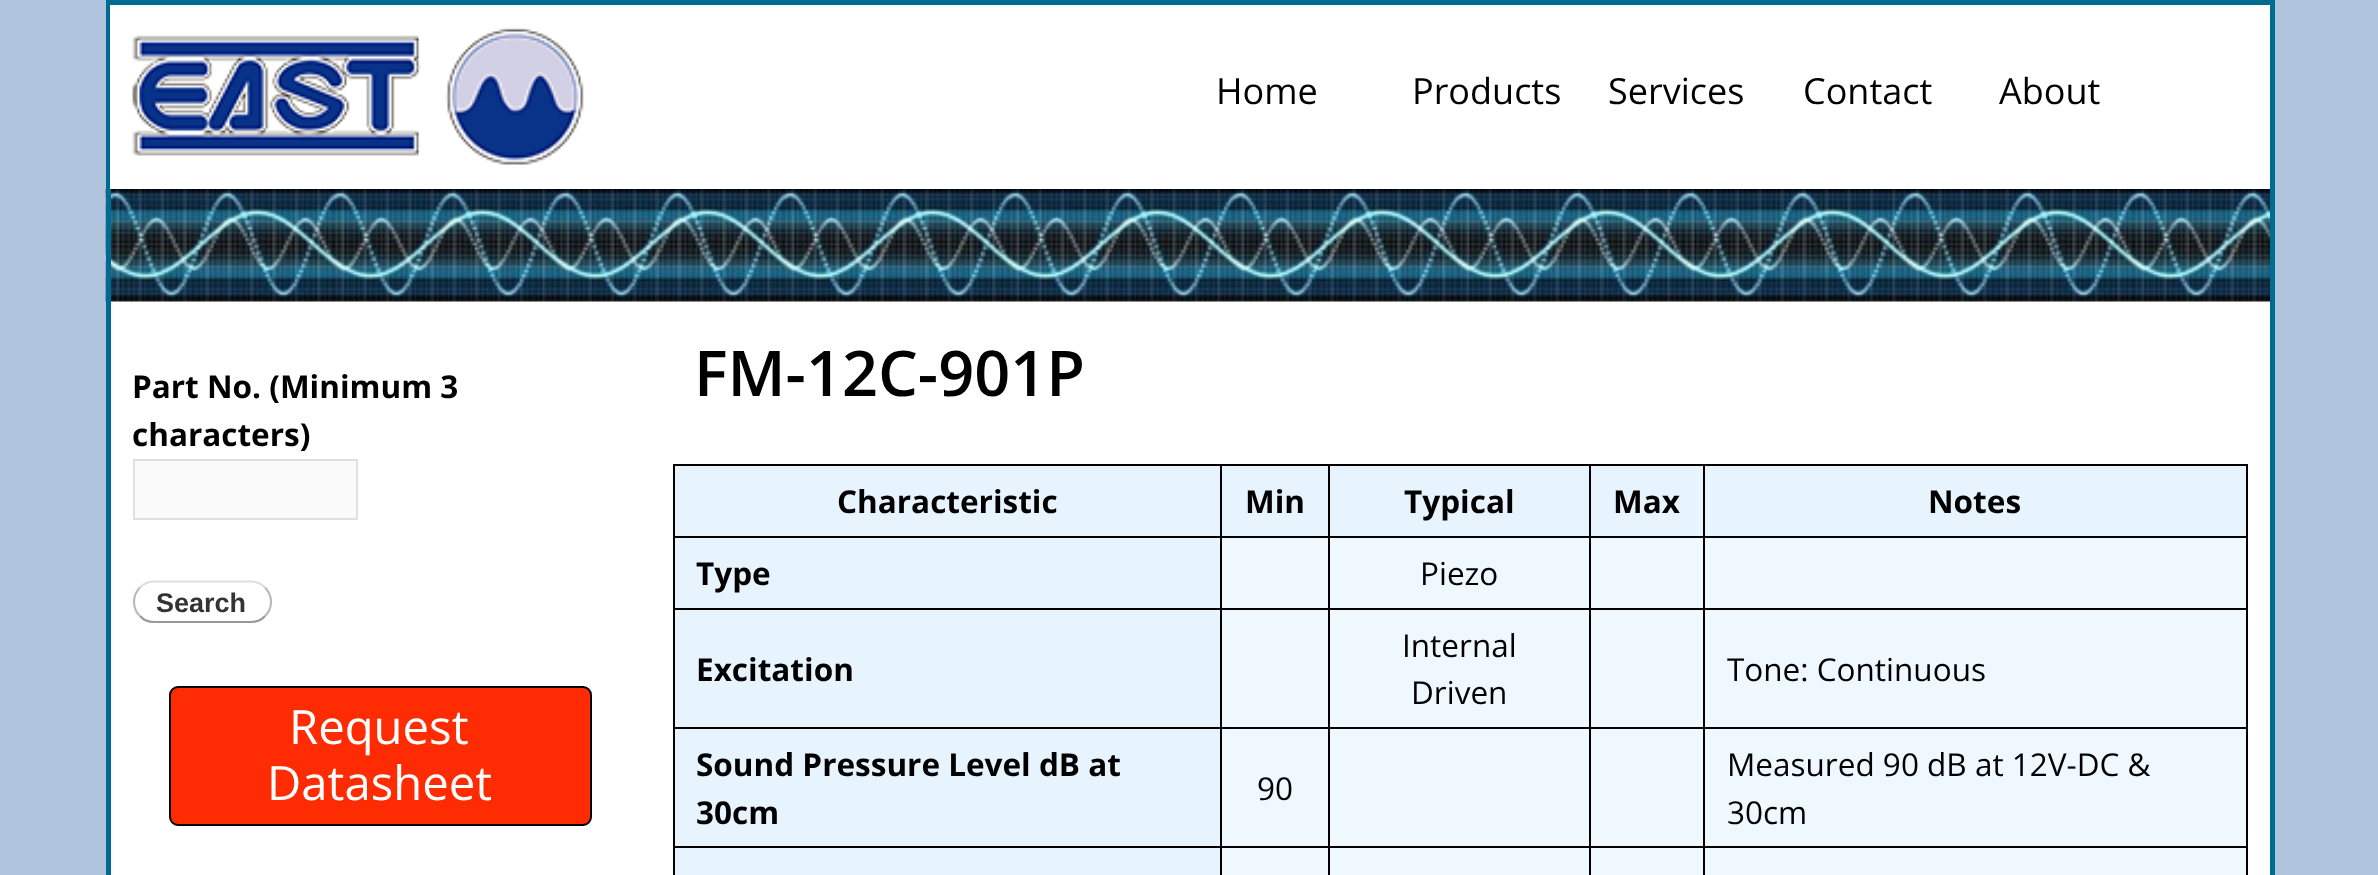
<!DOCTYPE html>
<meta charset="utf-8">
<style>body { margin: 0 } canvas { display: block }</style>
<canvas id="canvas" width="2378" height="875"></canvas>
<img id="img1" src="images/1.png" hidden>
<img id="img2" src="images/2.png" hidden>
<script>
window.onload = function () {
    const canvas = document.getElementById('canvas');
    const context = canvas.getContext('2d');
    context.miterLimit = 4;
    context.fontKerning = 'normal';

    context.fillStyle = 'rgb(176, 196, 222)';
    context.fillRect(0, 0, 2378, 875);
    context.fillStyle = 'rgb(255, 255, 255)';
    context.fillRect(2225, 5, 45, 184);
    context.fillStyle = 'rgb(0, 107, 145)';
    context.fillRect(106, 0, 2169, 5);
    context.fillRect(2270, 0, 5, 875);
    context.fillRect(106, 0, 5, 189);
    context.fillStyle = 'rgb(255, 255, 255)';
    context.fillRect(110, 5, 2115, 184);
    context.drawImage(document.getElementById('img1'), 132, 28, 452, 137);
    context.fillRect(111, 301, 2159, 574);
    context.drawImage(document.getElementById('img2'), 105, 189, 2165, 113);
    context.fillStyle = 'rgb(0, 107, 145)';
    context.fillRect(106, 189, 5, 686);
    context.fillStyle = 'rgb(251, 250, 250)';
    context.beginPath();
    context.rect(134, 460, 223, 59);
    context.fill();
    context.strokeStyle = 'rgb(224, 224, 224)';
    context.lineWidth = 2;
    context.stroke();
    context.beginPath();
    context.moveTo(140, 587.5);
    context.bezierCurveTo(143.5, 584, 149, 581.5, 154, 581.5);
    context.lineTo(251, 581.5);
    context.bezierCurveTo(256, 581.5, 261.5, 584, 265, 587.5);
    context.strokeStyle = 'rgb(221, 221, 221)';
    context.lineWidth = 2.2;
    context.stroke();
    context.beginPath();
    context.moveTo(265, 587.5);
    context.bezierCurveTo(273, 595.5, 273, 608.5, 265, 616);
    context.strokeStyle = 'rgb(187, 187, 187)';
    context.stroke();
    context.beginPath();
    context.moveTo(265, 616);
    context.bezierCurveTo(261.5, 620, 256, 622, 251, 622);
    context.lineTo(154, 622);
    context.bezierCurveTo(149, 622, 143.5, 620, 140, 616);
    context.strokeStyle = 'rgb(153, 153, 153)';
    context.stroke();
    context.beginPath();
    context.moveTo(140, 616);
    context.bezierCurveTo(132, 608.5, 132, 595.5, 140, 587.5);
    context.strokeStyle = 'rgb(187, 187, 187)';
    context.stroke();
    context.fillStyle = 'rgb(255, 43, 3)';
    context.beginPath();
    context.roundRect(170, 687, 421, 138, 8);
    context.fill();
    context.strokeStyle = 'rgb(0, 0, 0)';
    context.lineWidth = 2;
    context.stroke();
    context.fillStyle = 'rgb(231, 243, 253)';
    context.fillRect(675, 466, 545, 70);
    context.fillStyle = 'rgb(0, 0, 0)';
    context.fillRect(1703, 464, 545, 2);
    context.fillRect(1703, 536, 545, 2);
    context.fillRect(1703, 608, 545, 2);
    context.fillRect(1703, 727, 545, 2);
    context.fillRect(1703, 846, 545, 2);
    context.fillRect(1703, 846, 2, 29);
    context.fillRect(1589, 846, 117, 2);
    context.fillRect(1703, 727, 2, 121);
    context.fillRect(1589, 727, 117, 2);
    context.fillRect(1703, 608, 2, 121);
    context.fillRect(1589, 608, 117, 2);
    context.fillRect(1703, 536, 2, 74);
    context.fillRect(1589, 536, 117, 2);
    context.fillRect(1703, 464, 2, 74);
    context.fillRect(1589, 464, 117, 2);
    context.fillRect(1589, 846, 2, 29);
    context.fillRect(1328, 846, 263, 2);
    context.fillRect(1589, 727, 2, 121);
    context.fillRect(1328, 727, 263, 2);
    context.fillRect(1589, 608, 2, 121);
    context.fillRect(1328, 608, 263, 2);
    context.fillRect(1589, 536, 2, 74);
    context.fillRect(1328, 536, 263, 2);
    context.fillRect(1589, 464, 2, 74);
    context.fillRect(1328, 464, 263, 2);
    context.fillRect(1328, 846, 2, 29);
    context.fillRect(1220, 846, 110, 2);
    context.fillRect(1328, 727, 2, 121);
    context.fillRect(1220, 727, 110, 2);
    context.fillRect(1328, 608, 2, 121);
    context.fillRect(1220, 608, 110, 2);
    context.fillRect(1328, 536, 2, 74);
    context.fillRect(1220, 536, 110, 2);
    context.fillRect(1328, 464, 2, 74);
    context.fillRect(1220, 464, 110, 2);
    context.fillRect(1220, 846, 2, 29);
    context.fillRect(673, 846, 549, 2);
    context.fillRect(1220, 727, 2, 121);
    context.fillRect(673, 727, 549, 2);
    context.fillRect(1220, 608, 2, 121);
    context.fillRect(673, 608, 549, 2);
    context.fillRect(1220, 536, 2, 74);
    context.fillRect(673, 536, 549, 2);
    context.fillRect(1220, 464, 2, 74);
    context.fillRect(673, 464, 549, 2);
    context.fillRect(673, 846, 2, 29);
    context.fillRect(673, 727, 2, 121);
    context.fillRect(673, 608, 2, 121);
    context.fillRect(673, 536, 2, 74);
    context.fillRect(673, 464, 2, 74);
    context.fillStyle = 'rgb(231, 243, 253)';
    context.fillRect(1222, 466, 106, 70);
    context.fillRect(1330, 466, 259, 70);
    context.fillRect(1591, 466, 112, 70);
    context.fillRect(1705, 466, 541, 70);
    context.fillStyle = 'rgb(0, 0, 0)';
    context.fillRect(2246, 846, 2, 29);
    context.fillRect(2246, 727, 2, 121);
    context.fillRect(2246, 608, 2, 121);
    context.fillRect(2246, 536, 2, 74);
    context.fillRect(2246, 464, 2, 74);
    context.fillStyle = 'rgb(231, 243, 253)';
    context.fillRect(675, 538, 545, 70);
    context.fillStyle = 'rgb(240, 248, 255)';
    context.fillRect(1222, 538, 106, 70);
    context.fillRect(1330, 538, 259, 70);
    context.fillRect(1591, 538, 112, 70);
    context.fillRect(1705, 538, 541, 70);
    context.fillStyle = 'rgb(231, 243, 253)';
    context.fillRect(675, 610, 545, 117);
    context.fillStyle = 'rgb(240, 248, 255)';
    context.fillRect(1222, 610, 106, 117);
    context.fillRect(1330, 610, 259, 117);
    context.fillRect(1591, 610, 112, 117);
    context.fillRect(1705, 610, 541, 117);
    context.fillStyle = 'rgb(231, 243, 253)';
    context.fillRect(675, 729, 545, 117);
    context.fillStyle = 'rgb(240, 248, 255)';
    context.fillRect(1222, 729, 106, 117);
    context.fillRect(1330, 729, 259, 117);
    context.fillRect(1591, 729, 112, 117);
    context.fillRect(1705, 729, 541, 117);
    context.fillStyle = 'rgb(231, 243, 253)';
    context.fillRect(675, 848, 545, 27);
    context.fillStyle = 'rgb(240, 248, 255)';
    context.fillRect(1222, 848, 106, 27);
    context.fillRect(1330, 848, 259, 27);
    context.fillRect(1591, 848, 112, 27);
    context.fillRect(1705, 848, 541, 27);
    context.font = '36px Open Sans';
    context.fillStyle = 'rgb(0, 0, 0)';
    context.fillText('Home', 1216, 104);
    context.fillText('Products', 1412, 104);
    context.fillText('Services', 1608, 104);
    context.fillText('Contact', 1803, 104);
    context.fillText('About', 1999, 104);
    context.font = 'bold 31.5px Open Sans';
    context.fillText('Part No. (Minimum 3', 132, 398);
    context.fillText('characters)', 132, 446);
    context.font = 'bold 27px Liberation Sans';
    context.fillStyle = 'rgb(51, 51, 51)';
    context.fillText('Search', 156, 612);
    context.font = '47.25px Open Sans';
    context.fillStyle = 'rgb(255, 255, 255)';
    context.fillText('Request', 289, 744);
    context.fillText('Datasheet', 267, 800);
    context.font = '600 63px Open Sans';
    context.fillStyle = 'rgb(0, 0, 0)';
    context.fillText('FM-12C-901P', 694, 396);
    context.font = 'bold 31.5px Open Sans';
    context.fillText('Characteristic', 837, 513);
    context.fillText('Min', 1245, 513);
    context.fillText('Typical', 1404, 513);
    context.fillText('Max', 1613, 513);
    context.fillText('Notes', 1928, 513);
    context.fillText('Type', 696, 585);
    context.font = '31.5px Open Sans';
    context.fillText('Piezo', 1420, 585);
    context.font = 'bold 31.5px Open Sans';
    context.fillText('Excitation', 696, 681);
    context.font = '31.5px Open Sans';
    context.fillText('Internal', 1402, 657);
    context.fillText('Driven', 1411, 704);
    context.fillText('Tone: Continuous', 1727, 681);
    context.font = 'bold 31.5px Open Sans';
    context.fillText('Sound Pressure Level dB at', 696, 776);
    context.fillText('30cm', 696, 824);
    context.font = '31.5px Open Sans';
    context.fillText('90', 1257, 800);
    context.fillText('Measured 90 dB at 12V-DC &', 1727, 776);
    context.fillText('30cm', 1727, 824);
};
</script>
